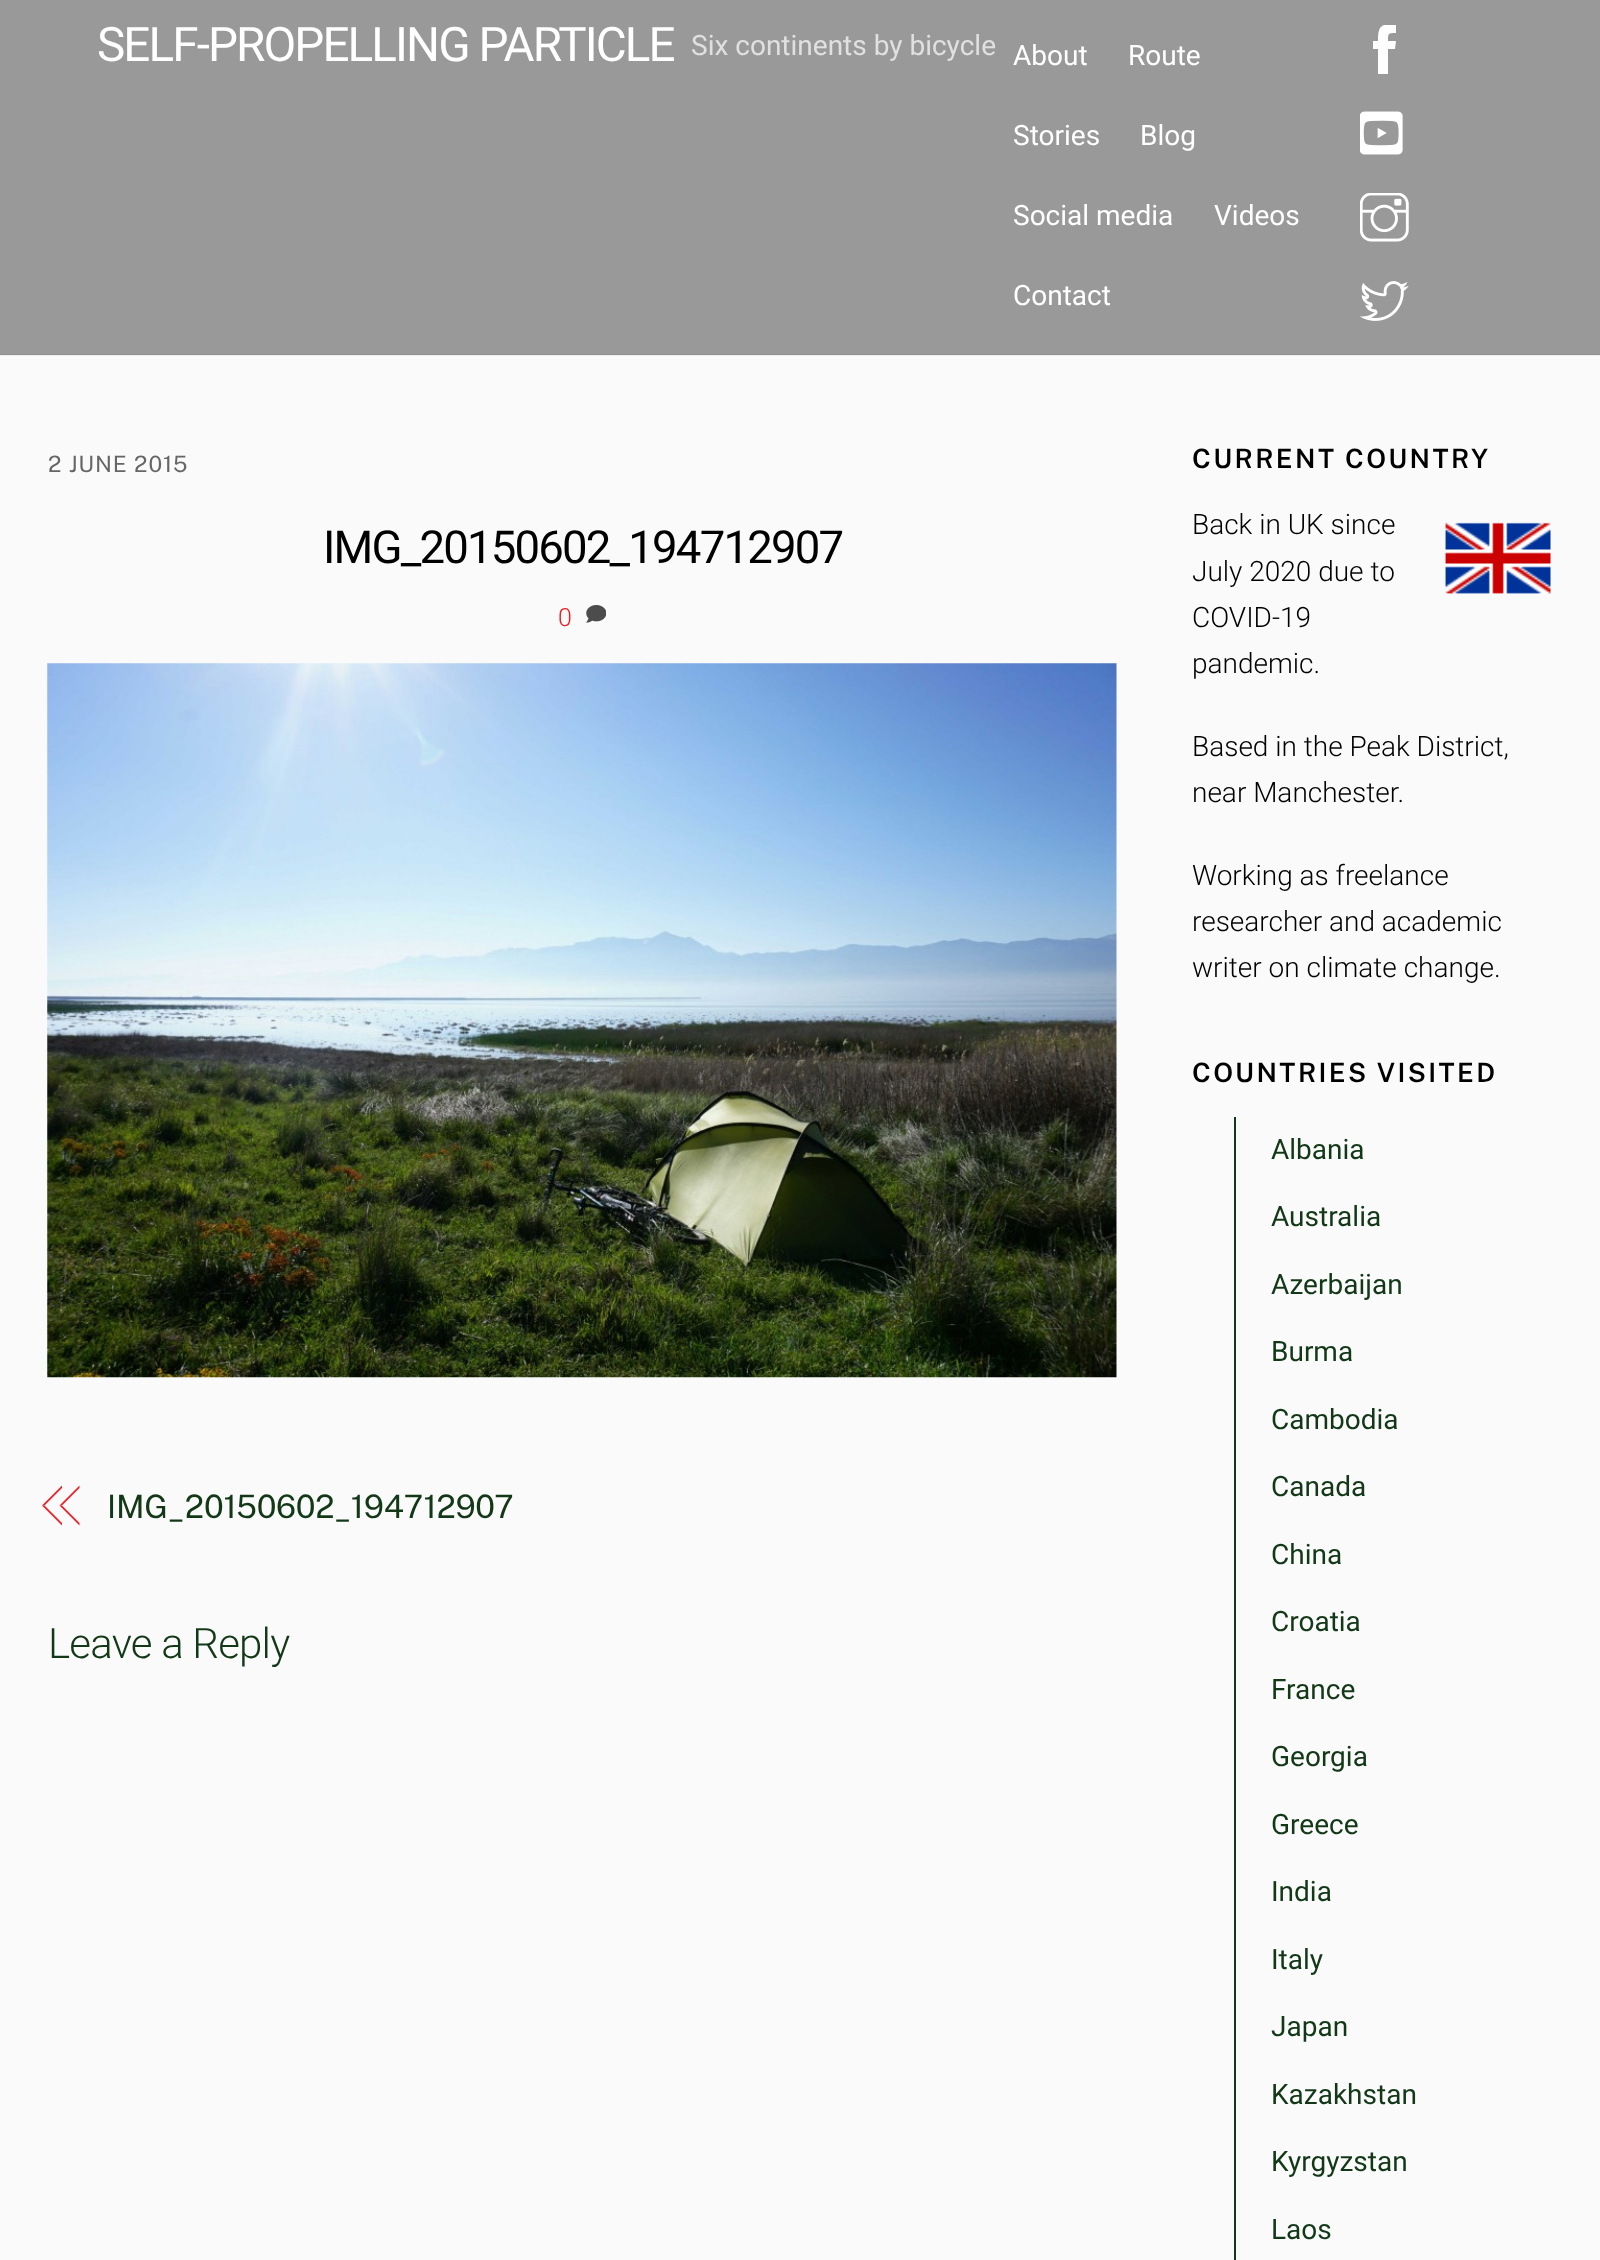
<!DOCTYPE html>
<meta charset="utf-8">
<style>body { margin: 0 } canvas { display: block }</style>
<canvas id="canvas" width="1600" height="2260"></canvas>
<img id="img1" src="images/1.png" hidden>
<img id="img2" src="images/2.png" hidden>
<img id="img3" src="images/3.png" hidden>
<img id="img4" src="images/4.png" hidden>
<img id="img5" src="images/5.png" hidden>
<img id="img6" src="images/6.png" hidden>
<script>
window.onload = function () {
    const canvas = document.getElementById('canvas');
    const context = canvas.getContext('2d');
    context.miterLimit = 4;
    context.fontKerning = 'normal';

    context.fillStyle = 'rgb(250, 250, 250)';
    context.fillRect(0, 0, 1600, 2260);
    context.fillStyle = 'rgb(238, 238, 238)';
    context.fillRect(0, 355, 1600, 1);
    context.fillStyle = 'rgb(153, 153, 153)';
    context.fillRect(0, 0, 1600, 354);
    context.fillStyle = 'rgb(145, 145, 145)';
    context.fillRect(0, 354, 1600, 1);
    context.save();
    context.beginPath();
    context.rect(1360, 25, 49, 49);
    context.clip();
    context.fillStyle = 'rgb(255, 255, 255)';
    context.beginPath();
    context.moveTo(1396, 41);
    context.lineTo(1388, 41);
    context.bezierCurveTo(1388, 33, 1388, 33, 1396, 33);
    context.lineTo(1396, 24);
    context.bezierCurveTo(1381, 24, 1378, 25, 1378, 41);
    context.lineTo(1373, 41);
    context.lineTo(1373, 49);
    context.lineTo(1378, 49);
    context.lineTo(1378, 74);
    context.lineTo(1388, 74);
    context.lineTo(1388, 49);
    context.lineTo(1395, 49);
    context.closePath();
    context.fill();
    context.restore();
    context.drawImage(document.getElementById('img1'), 1360, 111, 43, 44);
    context.drawImage(document.getElementById('img2'), 1360, 193, 49, 49);
    context.drawImage(document.getElementById('img3'), 1360, 281, 49, 40);
    context.drawImage(document.getElementById('img4'), 586, 605, 20, 18);
    context.drawImage(document.getElementById('img5'), 47, 663, 1070, 715);
    context.fillStyle = 'rgb(237, 30, 36)';
    context.beginPath();
    context.moveTo(42, 1505.5);
    context.lineTo(62, 1485.5);
    context.lineTo(62, 1488);
    context.lineTo(44.5, 1505.5);
    context.closePath();
    context.fill();
    context.beginPath();
    context.moveTo(62, 1525.5);
    context.lineTo(42, 1505.5);
    context.lineTo(44.5, 1505.5);
    context.lineTo(62, 1523);
    context.closePath();
    context.fill();
    context.beginPath();
    context.moveTo(59.5, 1505.5);
    context.lineTo(79.5, 1485.5);
    context.lineTo(79.5, 1488);
    context.lineTo(62, 1505.5);
    context.closePath();
    context.fill();
    context.beginPath();
    context.moveTo(79.5, 1525.5);
    context.lineTo(59.5, 1505.5);
    context.lineTo(62, 1505.5);
    context.lineTo(79.5, 1523);
    context.closePath();
    context.fill();
    context.drawImage(document.getElementById('img6'), 1445, 522, 106, 72);
    context.fillStyle = 'rgb(18, 56, 23)';
    context.fillRect(1234, 1117, 2, 1143);
    context.letterSpacing = '-1.9px';
    context.font = '47.6px Roboto';
    context.fillStyle = 'rgb(255, 255, 255)';
    context.fillText('SELF-PROPELLING PARTICLE', 97, 61);
    context.letterSpacing = '0px';
    context.font = '28px Roboto';
    context.fillStyle = 'rgb(224, 224, 224)';
    context.fillText('Six continents by bicycle', 691, 55);
    context.fillStyle = 'rgb(255, 255, 255)';
    context.fillText('About', 1013, 65);
    context.fillText('Route', 1128, 65);
    context.fillText('Stories', 1013, 145);
    context.fillText('Blog', 1140, 145);
    context.fillText('Social media', 1013, 225);
    context.fillText('Videos', 1214, 225);
    context.fillText('Contact', 1013, 305);
    context.letterSpacing = '0.9px';
    context.font = '22.5px Public Sans';
    context.fillStyle = 'rgb(102, 102, 102)';
    context.fillText('2 JUNE 2015', 48, 472);
    context.letterSpacing = '-1.8px';
    context.font = '45.5px Roboto';
    context.fillStyle = 'rgb(0, 0, 0)';
    context.fillText('IMG_20150602_194712907', 323, 563);
    context.letterSpacing = '0px';
    context.font = '300 25px Roboto';
    context.fillStyle = 'rgb(237, 30, 36)';
    context.fillText('0', 558, 626);
    context.letterSpacing = '-0.2px';
    context.font = '32.25px Public Sans';
    context.fillStyle = 'rgb(18, 56, 23)';
    context.fillText('IMG_20150602_194712907', 107, 1518);
    context.letterSpacing = '-0.8px';
    context.font = '300 42px Roboto';
    context.fillText('Leave a Reply', 48, 1658);
    context.letterSpacing = '2.4px';
    context.font = '600 26.6px Public Sans';
    context.fillStyle = 'rgb(0, 0, 0)';
    context.fillText('CURRENT COUNTRY', 1192, 468);
    context.letterSpacing = '0px';
    context.font = '300 28px Roboto';
    context.fillText('Back in UK since', 1192, 534);
    context.fillText('July 2020 due to', 1192, 581);
    context.fillText('COVID-19', 1192, 627);
    context.fillText('pandemic.', 1192, 673);
    context.fillText('Based in the Peak District,', 1192, 756);
    context.fillText('near Manchester.', 1192, 802);
    context.fillText('Working as freelance', 1192, 885);
    context.fillText('researcher and academic', 1192, 931);
    context.fillText('writer on climate change.', 1192, 977);
    context.letterSpacing = '2.4px';
    context.font = '600 26.6px Public Sans';
    context.fillText('COUNTRIES VISITED', 1192, 1082);
    context.letterSpacing = '0px';
    context.font = '28px Roboto';
    context.fillStyle = 'rgb(18, 56, 23)';
    context.fillText('Albania', 1271, 1159);
    context.fillText('Australia', 1271, 1226);
    context.fillText('Azerbaijan', 1271, 1294);
    context.fillText('Burma', 1271, 1361);
    context.fillText('Cambodia', 1271, 1429);
    context.fillText('Canada', 1271, 1496);
    context.fillText('China', 1271, 1564);
    context.fillText('Croatia', 1271, 1631);
    context.fillText('France', 1271, 1699);
    context.fillText('Georgia', 1271, 1766);
    context.fillText('Greece', 1271, 1834);
    context.fillText('India', 1271, 1901);
    context.fillText('Italy', 1271, 1969);
    context.fillText('Japan', 1271, 2036);
    context.fillText('Kazakhstan', 1271, 2104);
    context.fillText('Kyrgyzstan', 1271, 2171);
    context.fillText('Laos', 1271, 2239);
};
</script>
